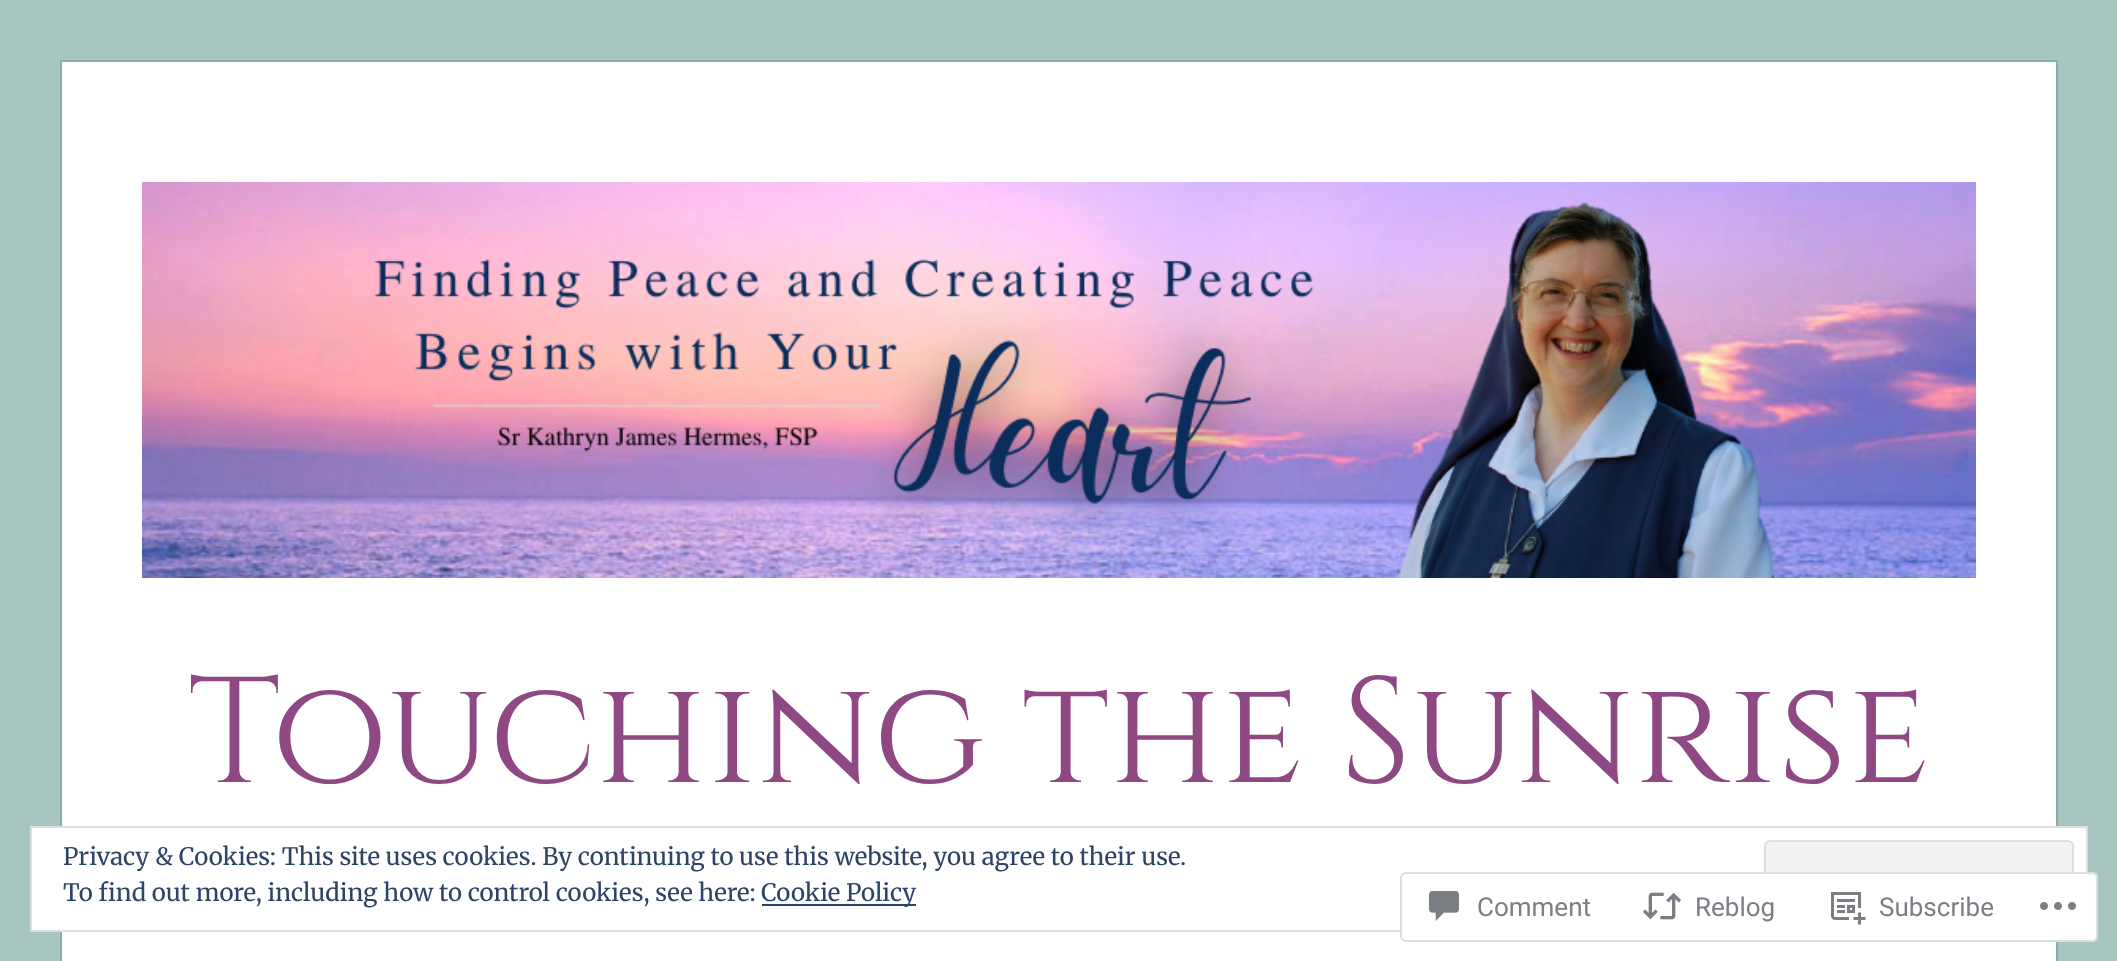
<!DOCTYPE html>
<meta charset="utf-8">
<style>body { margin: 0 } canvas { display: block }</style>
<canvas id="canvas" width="2117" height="961"></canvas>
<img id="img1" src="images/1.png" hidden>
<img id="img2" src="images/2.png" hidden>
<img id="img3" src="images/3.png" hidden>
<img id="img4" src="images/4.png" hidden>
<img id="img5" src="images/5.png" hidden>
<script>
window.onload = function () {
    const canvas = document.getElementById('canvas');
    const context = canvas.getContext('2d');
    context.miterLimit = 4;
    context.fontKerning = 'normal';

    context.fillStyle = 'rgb(167, 197, 193)';
    context.fillRect(0, 0, 2117, 961);
    context.fillStyle = 'rgb(255, 255, 255)';
    context.beginPath();
    context.rect(61, 61, 1996, 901);
    context.fill();
    context.strokeStyle = 'rgb(134, 176, 170)';
    context.lineWidth = 2;
    context.stroke();
    context.drawImage(document.getElementById('img1'), 142, 182, 1834, 396);
    context.beginPath();
    context.rect(31, 827, 2056, 104);
    context.fill();
    context.strokeStyle = 'rgb(222, 222, 222)';
    context.stroke();
    context.fillStyle = 'rgb(243, 243, 243)';
    context.beginPath();
    context.roundRect(1765, 841, 308, 76, 5);
    context.fill();
    context.stroke();
    context.fillStyle = 'rgb(46, 68, 103)';
    context.fillRect(762, 904, 154, 2);
    context.fillStyle = 'rgba(255, 255, 255, 0.98)';
    context.beginPath();
    context.roundRect(1400, 872, 698, 70, 6);
    context.fill();
    context.beginPath();
    context.roundRect(1401, 873, 696, 68, 5);
    context.strokeStyle = 'rgba(220, 220, 222, 0.98)';
    context.stroke();
    context.drawImage(document.getElementById('img2'), 1429, 891, 30, 30);
    context.drawImage(document.getElementById('img3'), 1642, 892, 40, 28);
    context.drawImage(document.getElementById('img4'), 1831, 892, 35, 33);
    context.drawImage(document.getElementById('img5'), 2040, 902, 36, 8);
    context.font = '150px Cinzel';
    context.fillStyle = 'rgb(142, 72, 131)';
    context.fillText('Touching the Sunrise', 188, 782);
    context.font = '24px Merriweather';
    context.fillStyle = 'rgb(46, 68, 103)';
    context.fillText('Privacy & Cookies: This site uses cookies. By continuing to use this website, you agree to their use.', 63, 865);
    context.fillText('To find out more, including how to control cookies, see here:', 63, 901);
    context.fillText('Cookie Policy', 761, 901);
    context.font = '26px Roboto';
    context.fillStyle = 'rgb(123, 127, 133)';
    context.fillText('Comment', 1477, 916);
    context.fillText('Reblog', 1695, 916);
    context.fillText('Subscribe', 1879, 916);
};
</script>
